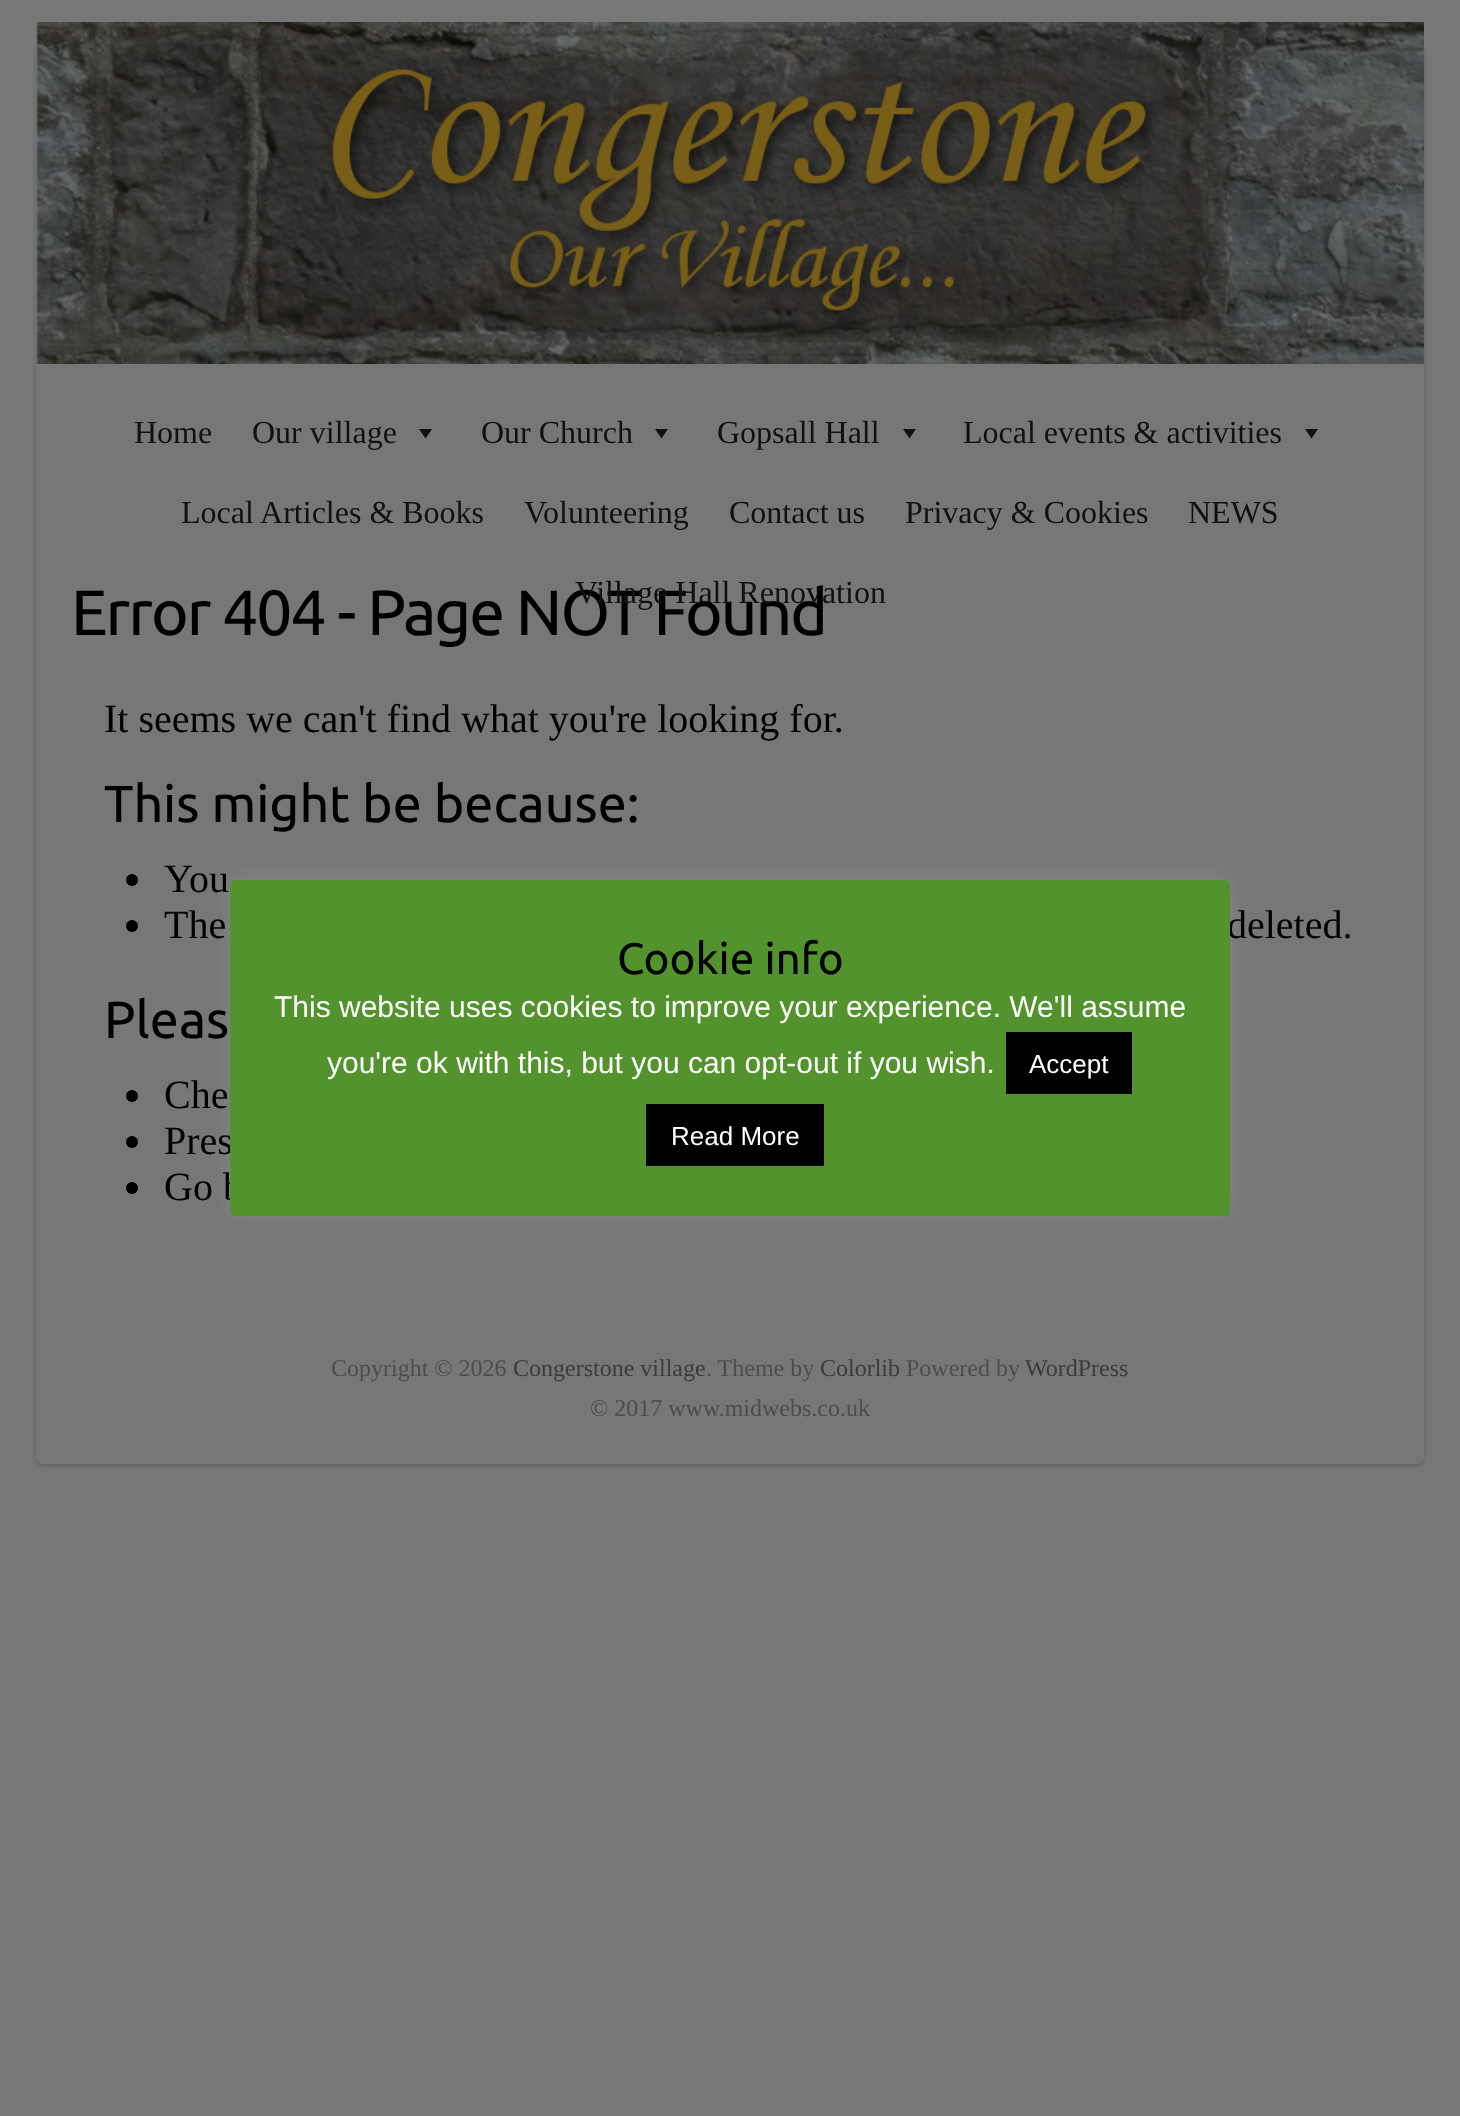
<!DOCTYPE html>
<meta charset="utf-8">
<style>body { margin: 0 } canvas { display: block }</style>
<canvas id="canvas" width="1460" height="2116"></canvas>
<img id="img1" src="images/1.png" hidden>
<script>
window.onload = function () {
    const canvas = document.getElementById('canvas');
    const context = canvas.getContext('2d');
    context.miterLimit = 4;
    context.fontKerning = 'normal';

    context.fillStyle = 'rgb(119, 119, 119)';
    context.fillRect(0, 0, 1460, 2116);
    context.fillStyle = 'rgba(0, 0, 0, 0.2)';
    context.filter = 'blur(2px)';
    context.beginPath();
    context.roundRect(36, 44, 1388, 1422, 8);
    context.fill();
    context.filter = 'none';
    context.fillStyle = 'rgb(119, 119, 119)';
    context.beginPath();
    context.roundRect(36, 42, 1388, 1422, 8);
    context.fill();
    context.drawImage(document.getElementById('img1'), 36, 22, 1388, 342);
    context.fillStyle = 'rgb(17, 17, 17)';
    context.beginPath();
    context.moveTo(432, 429);
    context.lineTo(425.5, 438.5);
    context.lineTo(419, 429);
    context.closePath();
    context.fill();
    context.beginPath();
    context.moveTo(668, 429);
    context.lineTo(661.5, 438.5);
    context.lineTo(655, 429);
    context.closePath();
    context.fill();
    context.beginPath();
    context.moveTo(916, 429);
    context.lineTo(909.5, 438.5);
    context.lineTo(903, 429);
    context.closePath();
    context.fill();
    context.beginPath();
    context.moveTo(1318, 429);
    context.lineTo(1311.5, 438.5);
    context.lineTo(1305, 429);
    context.closePath();
    context.fill();
    context.fillStyle = 'rgb(0, 0, 0)';
    context.beginPath();
    context.arc(132, 880, 6, 0, 2 * Math.PI);
    context.fill();
    context.beginPath();
    context.arc(132, 926, 6, 0, 2 * Math.PI);
    context.fill();
    context.beginPath();
    context.arc(132, 1096, 6, 0, 2 * Math.PI);
    context.fill();
    context.beginPath();
    context.arc(132, 1142, 6, 0, 2 * Math.PI);
    context.fill();
    context.beginPath();
    context.arc(132, 1188, 6, 0, 2 * Math.PI);
    context.fill();
    context.fillStyle = 'rgba(172, 171, 171, 0.3)';
    context.filter = 'blur(10px)';
    context.beginPath();
    context.roundRect(230, 878, 1000, 336, 6);
    context.fill();
    context.filter = 'none';
    context.font = '32px Liberation Serif';
    context.fillStyle = 'rgb(17, 17, 17)';
    context.fillText('Home', 134, 443);
    context.fillText('Our village', 252, 443);
    context.fillText('Our Church', 481, 443);
    context.fillText('Gopsall Hall', 717, 443);
    context.fillText('Local events & activities', 963, 443);
    context.fillText('Local Articles & Books', 181, 523);
    context.fillText('Volunteering', 524, 523);
    context.fillText('Contact us', 729, 523);
    context.fillText('Privacy & Cookies', 905, 523);
    context.fillText('NEWS', 1188, 523);
    context.letterSpacing = '-2px';
    context.font = '64px Ubuntu';
    context.fillStyle = 'rgb(0, 0, 0)';
    context.fillText('Error 404 - Page NOT Found', 71, 635);
    context.letterSpacing = '0px';
    context.font = '32px Liberation Serif';
    context.fillStyle = 'rgb(17, 17, 17)';
    context.fillText('Village Hall Renovation', 575, 603);
    context.font = '40px Liberation Serif';
    context.fillStyle = 'rgb(0, 0, 0)';
    context.fillText('It seems we can\'t find what you\'re looking for.', 104, 732);
    context.font = '52px Ubuntu';
    context.fillText('This might be because:', 104, 822);
    context.font = '40px Liberation Serif';
    context.fillText('You', 164, 892);
    context.fillText('The', 164, 938);
    context.fillText('deleted.', 1227, 938);
    context.font = '52px Ubuntu';
    context.fillText('Pleas', 104, 1038);
    context.font = '40px Liberation Serif';
    context.fillText('Che', 164, 1108);
    context.fillText('Pres', 164, 1154);
    context.fillText('Go b', 164, 1200);
    context.font = '24px Liberation Serif';
    context.fillStyle = 'rgb(77, 77, 77)';
    context.fillText('Copyright © 2026', 331, 1376);
    context.fillStyle = 'rgb(60, 60, 60)';
    context.fillText('Congerstone village', 513, 1376);
    context.fillStyle = 'rgb(77, 77, 77)';
    context.fillText('. Theme by', 706, 1376);
    context.fillStyle = 'rgb(60, 60, 60)';
    context.fillText('Colorlib', 820, 1376);
    context.fillStyle = 'rgb(77, 77, 77)';
    context.fillText('Powered by', 906, 1376);
    context.fillStyle = 'rgb(60, 60, 60)';
    context.fillText('WordPress', 1025, 1376);
    context.fillStyle = 'rgb(77, 77, 77)';
    context.fillText('© 2017 www.midwebs.co.uk', 590, 1416);
    context.fillStyle = 'rgb(83, 147, 45)';
    context.beginPath();
    context.roundRect(230, 880, 1000, 336, 6);
    context.fill();
    context.font = '44px Ubuntu';
    context.fillStyle = 'rgb(0, 0, 0)';
    context.fillText('Cookie info', 617, 974);
    context.font = '30px Liberation Sans';
    context.fillStyle = 'rgb(255, 255, 255)';
    context.fillText('This website uses cookies to improve your experience. We\'ll assume', 274, 1017);
    context.fillText('you\'re ok with this, but you can opt-out if you wish.', 327, 1073);
    context.fillStyle = 'rgb(0, 0, 0)';
    context.fillRect(1006, 1032, 126, 62);
    context.font = '26px Liberation Sans';
    context.fillStyle = 'rgb(255, 255, 255)';
    context.fillText('Accept', 1029, 1073);
    context.fillStyle = 'rgb(0, 0, 0)';
    context.fillRect(646, 1104, 178, 62);
    context.fillStyle = 'rgb(255, 255, 255)';
    context.fillText('Read More', 671, 1145);
};
</script>
